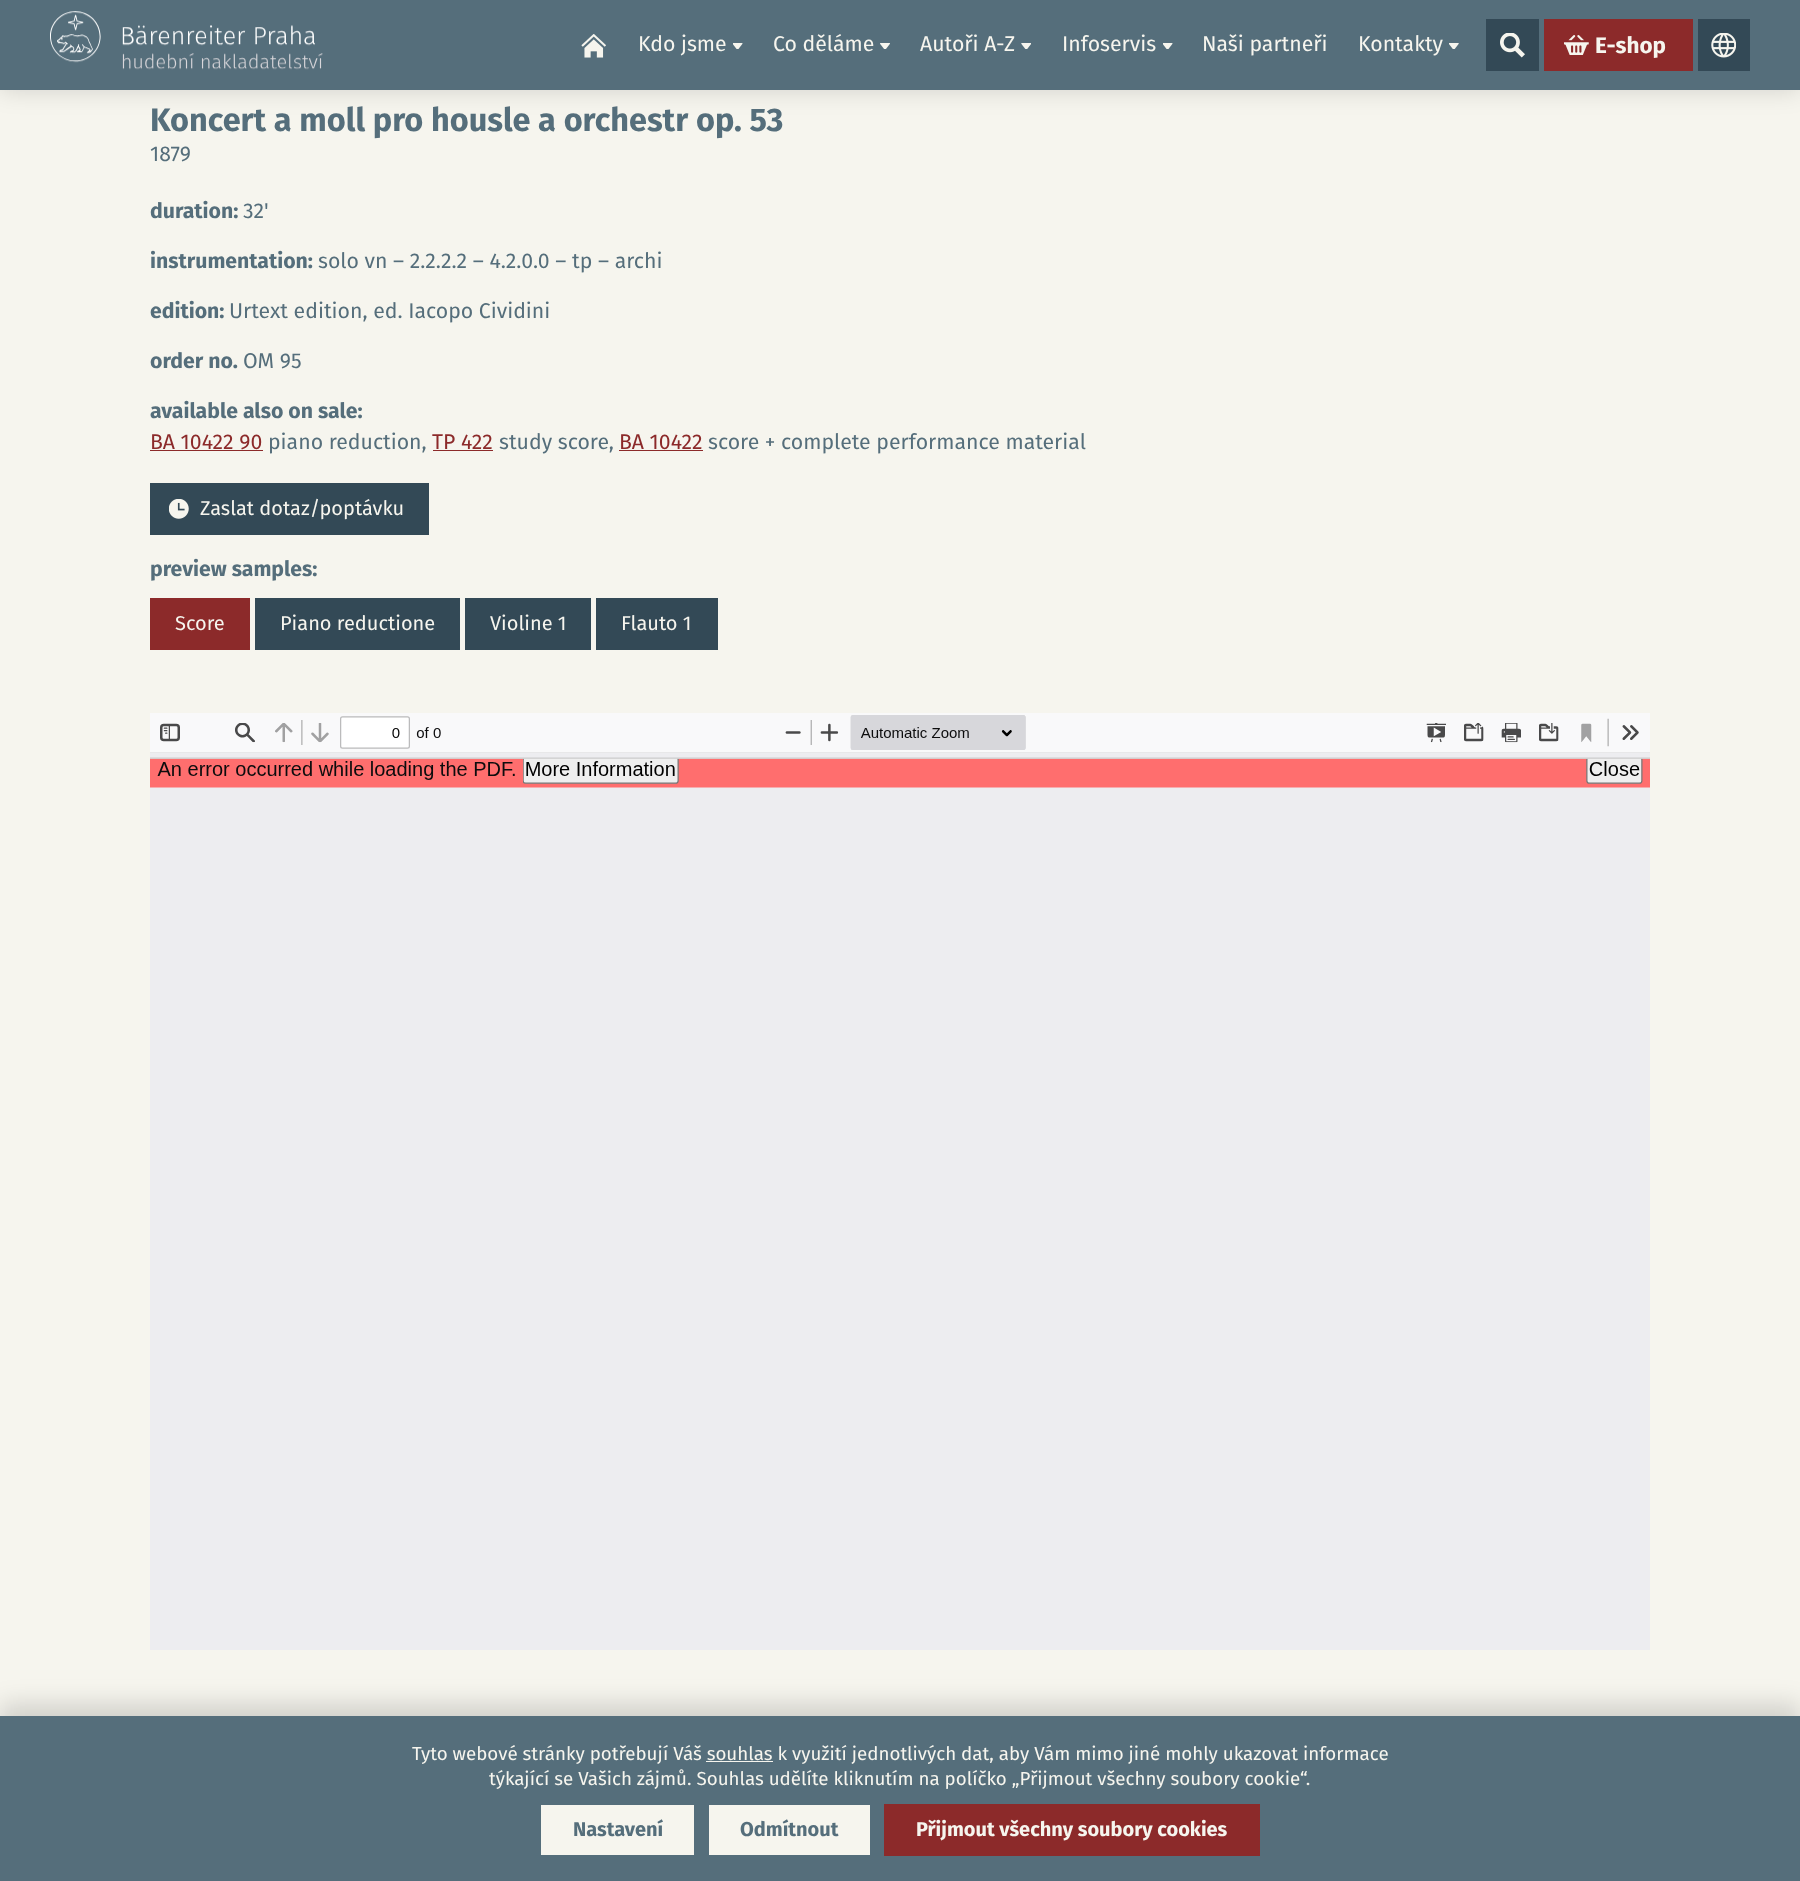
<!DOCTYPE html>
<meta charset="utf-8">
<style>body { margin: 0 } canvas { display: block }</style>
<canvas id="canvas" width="1800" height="1881"></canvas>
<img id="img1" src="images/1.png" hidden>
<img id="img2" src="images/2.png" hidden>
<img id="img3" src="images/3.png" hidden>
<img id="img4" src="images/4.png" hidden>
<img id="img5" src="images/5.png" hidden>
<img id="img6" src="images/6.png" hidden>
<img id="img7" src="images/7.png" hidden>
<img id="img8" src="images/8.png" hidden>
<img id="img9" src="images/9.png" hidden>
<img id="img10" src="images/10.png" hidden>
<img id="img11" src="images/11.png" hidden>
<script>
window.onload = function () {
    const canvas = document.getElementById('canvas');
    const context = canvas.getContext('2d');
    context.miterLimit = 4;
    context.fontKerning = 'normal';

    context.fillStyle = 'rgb(246, 245, 238)';
    context.fillRect(0, 0, 1800, 1881);
    context.fillStyle = 'rgba(0, 0, 0, 0.15)';
    context.filter = 'blur(12.5px)';
    context.beginPath();
    context.rect(0, 0, 1800, 90);
    context.fill();
    context.filter = 'none';
    context.fillStyle = 'rgb(85, 110, 123)';
    context.fillRect(0, 0, 1800, 90);
    context.drawImage(document.getElementById('img1'), 50, 11, 273, 59);
    context.drawImage(document.getElementById('img2'), 581, 34, 25, 24);
    context.drawImage(document.getElementById('img3'), 733, 43, 10, 6);
    context.drawImage(document.getElementById('img4'), 880, 43, 10, 6);
    context.drawImage(document.getElementById('img5'), 1021, 43, 10, 6);
    context.drawImage(document.getElementById('img3'), 1163, 43, 10, 6);
    context.drawImage(document.getElementById('img6'), 1449, 43, 10, 6);
    context.fillStyle = 'rgb(51, 73, 86)';
    context.fillRect(1486, 19, 53, 52);
    context.drawImage(document.getElementById('img7'), 1500, 33, 25, 25);
    context.fillStyle = 'rgb(140, 42, 42)';
    context.fillRect(1544, 19, 149, 52);
    context.drawImage(document.getElementById('img8'), 1564, 35, 25, 20);
    context.fillStyle = 'rgb(51, 73, 86)';
    context.fillRect(1698, 19, 52, 52);
    context.drawImage(document.getElementById('img9'), 1711, 33, 25, 25);
    context.fillStyle = 'rgb(140, 42, 42)';
    context.fillRect(150, 450, 113, 1);
    context.fillRect(433, 450, 60, 1);
    context.fillRect(619, 450, 84, 1);
    context.fillStyle = 'rgb(51, 73, 86)';
    context.fillRect(150, 483, 279, 52);
    context.drawImage(document.getElementById('img10'), 169, 499, 20, 20);
    context.fillStyle = 'rgb(140, 42, 42)';
    context.fillRect(150, 598, 100, 52);
    context.fillStyle = 'rgb(51, 73, 86)';
    context.fillRect(255, 598, 205, 52);
    context.fillRect(465, 598, 126, 52);
    context.fillRect(596, 598, 122, 52);
    context.drawImage(document.getElementById('img11'), 150, 713, 1500, 937);
    context.fillStyle = 'rgba(0, 0, 0, 0.15)';
    context.filter = 'blur(12.5px)';
    context.beginPath();
    context.rect(0, 1704, 1800, 165);
    context.fill();
    context.filter = 'none';
    context.fillStyle = 'rgb(85, 110, 123)';
    context.fillRect(0, 1716, 1800, 165);
    context.fillStyle = 'rgb(246, 245, 238)';
    context.fillRect(706, 1761, 67, 1);
    context.fillRect(541, 1805, 153, 50);
    context.fillRect(709, 1805, 161, 50);
    context.fillStyle = 'rgb(140, 42, 42)';
    context.fillRect(884, 1804, 376, 52);
    context.font = '21.25px Fira Sans';
    context.fillStyle = 'rgb(246, 245, 238)';
    context.fillText('Kdo jsme', 638, 51);
    context.fillText('Co děláme', 773, 51);
    context.fillText('Autoři A-Z', 920, 51);
    context.fillText('Infoservis', 1062, 51);
    context.fillText('Naši partneři', 1202, 51);
    context.fillText('Kontakty', 1358, 51);
    context.font = 'bold 22.5px Fira Sans';
    context.fillText('E-shop', 1595, 53);
    context.font = 'bold 32.5px Fira Sans';
    context.fillStyle = 'rgb(85, 110, 123)';
    context.fillText('Koncert a moll pro housle a orchestr op. 53', 150, 131);
    context.font = '21.25px Fira Sans';
    context.fillText('1879', 150, 161);
    context.font = 'bold 21.25px Fira Sans';
    context.fillText('duration:', 150, 218);
    context.font = '21.25px Fira Sans';
    context.fillText('32\'', 243, 218);
    context.font = 'bold 21.25px Fira Sans';
    context.fillText('instrumentation:', 150, 268);
    context.font = '21.25px Fira Sans';
    context.fillText('solo vn – 2.2.2.2 – 4.2.0.0 – tp – archi', 318, 268);
    context.font = 'bold 21.25px Fira Sans';
    context.fillText('edition:', 150, 318);
    context.font = '21.25px Fira Sans';
    context.fillText('Urtext edition, ed. Iacopo Cividini', 229, 318);
    context.font = 'bold 21.25px Fira Sans';
    context.fillText('order no.', 150, 368);
    context.font = '21.25px Fira Sans';
    context.fillText('OM 95', 243, 368);
    context.font = 'bold 21.25px Fira Sans';
    context.fillText('available also on sale:', 150, 418);
    context.font = '21.25px Fira Sans';
    context.fillStyle = 'rgb(140, 42, 42)';
    context.fillText('BA 10422 90', 150, 449);
    context.fillStyle = 'rgb(85, 110, 123)';
    context.fillText('piano reduction,', 268, 449);
    context.fillStyle = 'rgb(140, 42, 42)';
    context.fillText('TP 422', 432, 449);
    context.fillStyle = 'rgb(85, 110, 123)';
    context.fillText('study score,', 499, 449);
    context.fillStyle = 'rgb(140, 42, 42)';
    context.fillText('BA 10422', 619, 449);
    context.fillStyle = 'rgb(85, 110, 123)';
    context.fillText('score + complete performance material', 708, 449);
    context.font = '20px Fira Sans';
    context.fillStyle = 'rgb(246, 245, 238)';
    context.fillText('Zaslat dotaz/poptávku', 200, 515);
    context.font = 'bold 21.25px Fira Sans';
    context.fillStyle = 'rgb(85, 110, 123)';
    context.fillText('preview samples:', 150, 576);
    context.font = '20px Fira Sans';
    context.fillStyle = 'rgb(246, 245, 238)';
    context.fillText('Score', 175, 630);
    context.fillText('Piano reductione', 280, 630);
    context.fillText('Violine 1', 490, 630);
    context.fillText('Flauto 1', 621, 630);
    context.font = '18.75px Fira Sans';
    context.fillText('Tyto webové stránky potřebují Váš souhlas k využití jednotlivých dat, aby Vám mimo jiné mohly ukazovat informace', 412, 1760);
    context.fillText('týkající se Vašich zájmů. Souhlas udělíte kliknutím na políčko „Přijmout všechny soubory cookie“.', 489, 1785);
    context.font = 'bold 20px Fira Sans';
    context.fillStyle = 'rgb(85, 110, 123)';
    context.fillText('Nastavení', 573, 1836);
    context.fillText('Odmítnout', 740, 1836);
    context.fillStyle = 'rgb(246, 245, 238)';
    context.fillText('Přijmout všechny soubory cookies', 916, 1836);
};
</script>
